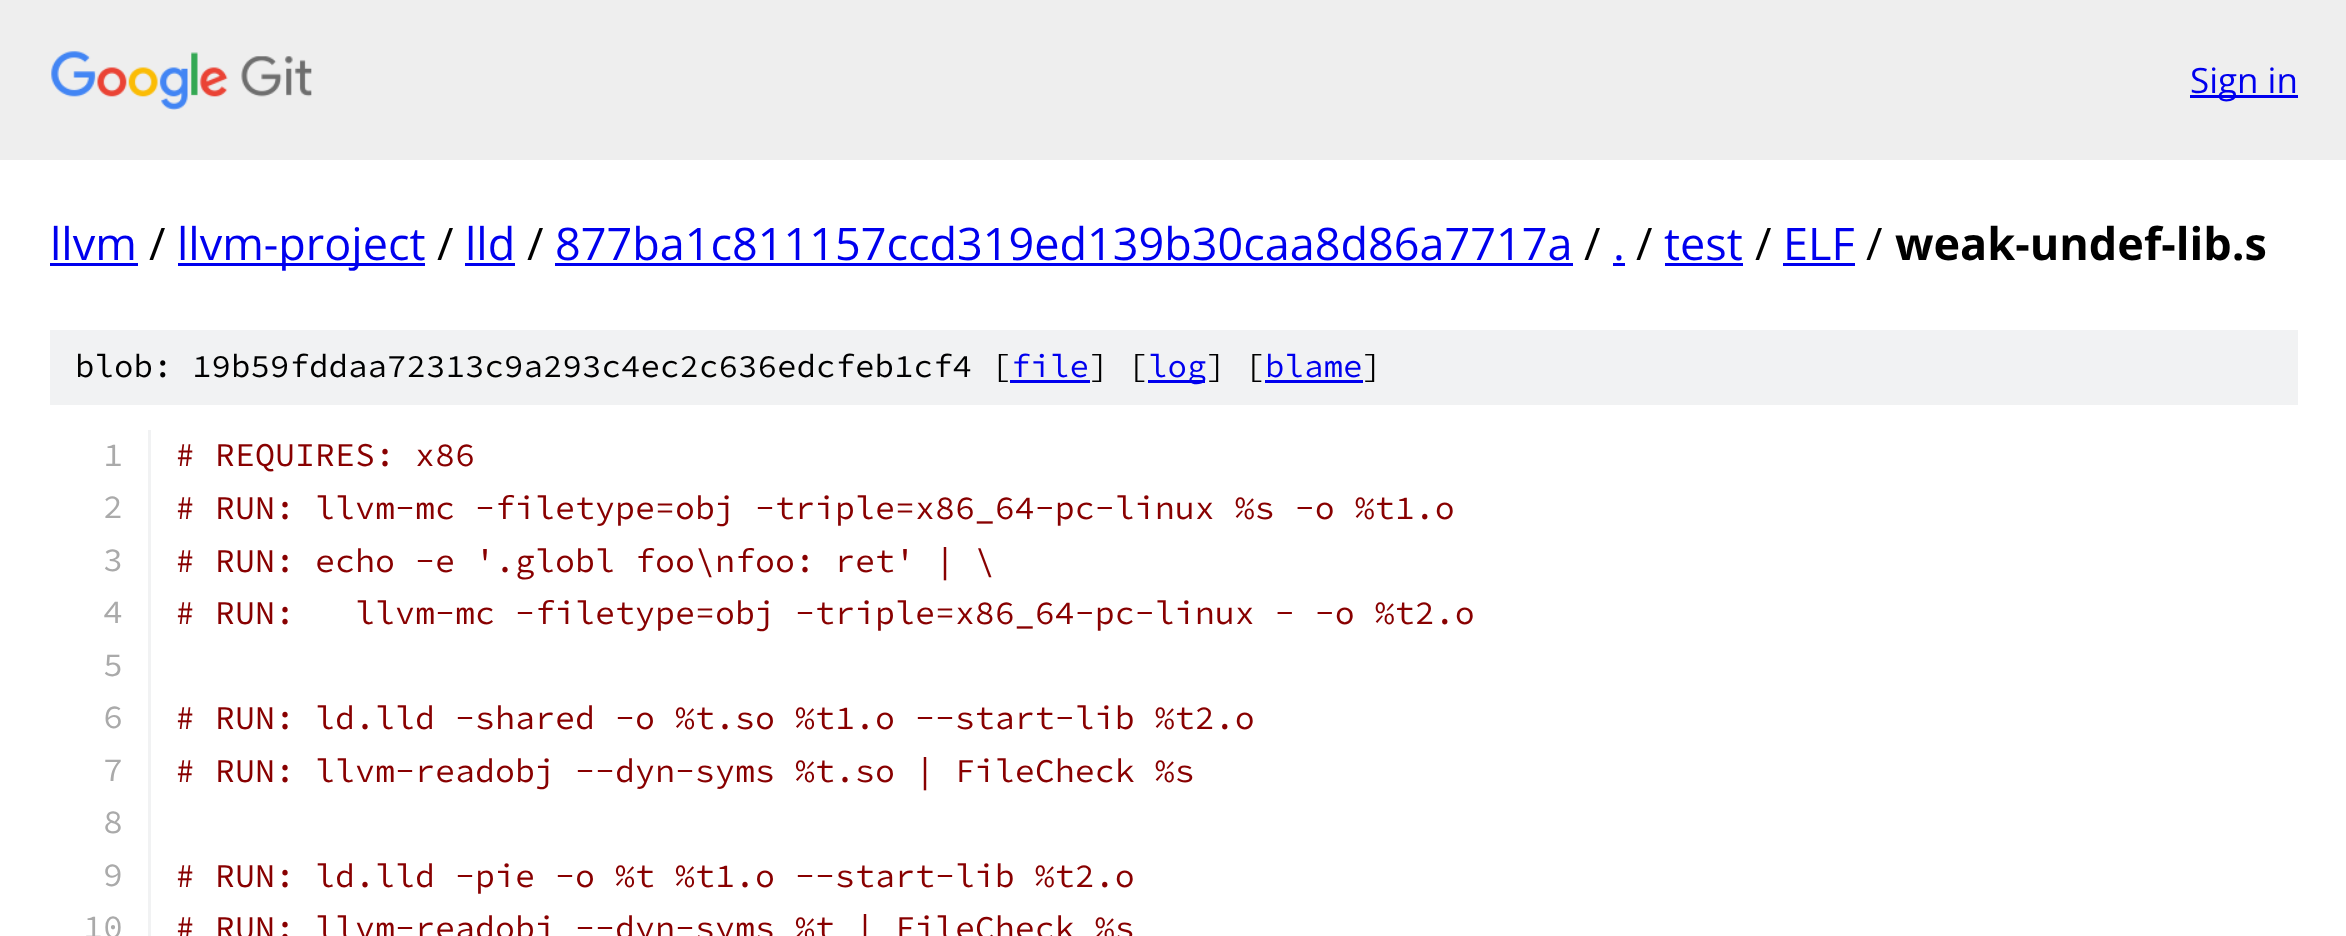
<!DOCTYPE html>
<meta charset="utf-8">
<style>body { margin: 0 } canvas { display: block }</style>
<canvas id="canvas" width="2346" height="936"></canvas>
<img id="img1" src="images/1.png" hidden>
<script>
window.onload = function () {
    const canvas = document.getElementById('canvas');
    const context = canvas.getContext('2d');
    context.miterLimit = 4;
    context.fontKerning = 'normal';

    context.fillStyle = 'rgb(255, 255, 255)';
    context.fillRect(0, 0, 2346, 936);
    context.fillStyle = 'rgb(238, 238, 238)';
    context.fillRect(0, 0, 2346, 160);
    context.drawImage(document.getElementById('img1'), 51, 51, 261, 59);
    context.fillStyle = 'rgb(0, 0, 238)';
    context.fillRect(2190, 95, 108, 3);
    context.fillRect(50, 263, 88, 3);
    context.fillRect(178, 263, 247, 3);
    context.fillRect(465, 263, 50, 3);
    context.fillRect(555, 263, 1018, 3);
    context.fillRect(1613, 263, 12, 3);
    context.fillRect(1665, 263, 78, 3);
    context.fillRect(1783, 263, 72, 3);
    context.fillStyle = 'rgb(241, 242, 243)';
    context.fillRect(50, 330, 2248, 75);
    context.fillStyle = 'rgb(0, 0, 238)';
    context.fillRect(1010, 380, 80, 3);
    context.fillRect(1148, 380, 57, 3);
    context.fillRect(1265, 380, 98, 3);
    context.fillStyle = 'rgb(241, 242, 243)';
    context.fillRect(148, 430, 3, 506);
    context.font = '35px Open Sans';
    context.fillStyle = 'rgb(0, 0, 238)';
    context.fillText('Sign in', 2190, 93);
    context.font = '45px Open Sans';
    context.fillText('llvm', 50, 260);
    context.fillStyle = 'rgb(0, 0, 0)';
    context.fillText('/', 149, 260);
    context.fillStyle = 'rgb(0, 0, 238)';
    context.fillText('llvm-project', 177, 260);
    context.fillStyle = 'rgb(0, 0, 0)';
    context.fillText('/', 437, 260);
    context.fillStyle = 'rgb(0, 0, 238)';
    context.fillText('lld', 465, 260);
    context.fillStyle = 'rgb(0, 0, 0)';
    context.fillText('/', 527, 260);
    context.fillStyle = 'rgb(0, 0, 238)';
    context.fillText('877ba1c811157ccd319ed139b30caa8d86a7717a', 555, 260);
    context.fillStyle = 'rgb(0, 0, 0)';
    context.fillText('/', 1584, 260);
    context.fillStyle = 'rgb(0, 0, 238)';
    context.fillText('.', 1613, 260);
    context.fillStyle = 'rgb(0, 0, 0)';
    context.fillText('/', 1636, 260);
    context.fillStyle = 'rgb(0, 0, 238)';
    context.fillText('test', 1664, 260);
    context.fillStyle = 'rgb(0, 0, 0)';
    context.fillText('/', 1755, 260);
    context.fillStyle = 'rgb(0, 0, 238)';
    context.fillText('ELF', 1783, 260);
    context.fillStyle = 'rgb(0, 0, 0)';
    context.fillText('/', 1866, 260);
    context.font = 'bold 45px Open Sans';
    context.fillText('weak-undef-lib.s', 1895, 260);
    context.font = '200 32.5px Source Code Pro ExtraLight';
    context.fillText('blob: 19b59fddaa72313c9a293c4ec2c636edcfeb1cf4 [', 75, 377);
    context.fillStyle = 'rgb(0, 0, 238)';
    context.fillText('file', 1011, 377);
    context.fillStyle = 'rgb(0, 0, 0)';
    context.fillText('] [', 1089, 377);
    context.fillStyle = 'rgb(0, 0, 238)';
    context.fillText('log', 1148, 377);
    context.fillStyle = 'rgb(0, 0, 0)';
    context.fillText('] [', 1206, 377);
    context.fillStyle = 'rgb(0, 0, 238)';
    context.fillText('blame', 1265, 377);
    context.fillStyle = 'rgb(0, 0, 0)';
    context.fillText(']', 1362, 377);
    context.font = '200 33.35px Source Code Pro ExtraLight';
    context.fillStyle = 'rgb(170, 170, 170)';
    context.fillText('1', 103, 466);
    context.fillStyle = 'rgb(136, 0, 0)';
    context.fillText('# REQUIRES: x86', 175, 466);
    context.fillStyle = 'rgb(170, 170, 170)';
    context.fillText('2', 103, 518);
    context.fillStyle = 'rgb(136, 0, 0)';
    context.fillText('# RUN: llvm-mc -filetype=obj -triple=x86_64-pc-linux %s -o %t1.o', 175, 519);
    context.fillStyle = 'rgb(170, 170, 170)';
    context.fillText('3', 103, 571);
    context.fillStyle = 'rgb(136, 0, 0)';
    context.fillText('# RUN: echo -e \'.globl foo\\nfoo: ret\' | \\', 175, 572);
    context.fillStyle = 'rgb(170, 170, 170)';
    context.fillText('4', 103, 623);
    context.fillStyle = 'rgb(136, 0, 0)';
    context.fillText('# RUN:   llvm-mc -filetype=obj -triple=x86_64-pc-linux - -o %t2.o', 175, 624);
    context.fillStyle = 'rgb(170, 170, 170)';
    context.fillText('5', 103, 676);
    context.fillText('6', 103, 728);
    context.fillStyle = 'rgb(136, 0, 0)';
    context.fillText('# RUN: ld.lld -shared -o %t.so %t1.o --start-lib %t2.o', 175, 729);
    context.fillStyle = 'rgb(170, 170, 170)';
    context.fillText('7', 103, 781);
    context.fillStyle = 'rgb(136, 0, 0)';
    context.fillText('# RUN: llvm-readobj --dyn-syms %t.so | FileCheck %s', 175, 782);
    context.fillStyle = 'rgb(170, 170, 170)';
    context.fillText('8', 103, 833);
    context.fillText('9', 103, 886);
    context.fillStyle = 'rgb(136, 0, 0)';
    context.fillText('# RUN: ld.lld -pie -o %t %t1.o --start-lib %t2.o', 175, 887);
    context.fillStyle = 'rgb(170, 170, 170)';
    context.fillText('10', 83, 938);
    context.fillStyle = 'rgb(136, 0, 0)';
    context.fillText('# RUN: llvm-readobj --dyn-syms %t | FileCheck %s', 175, 939);
};
</script>
